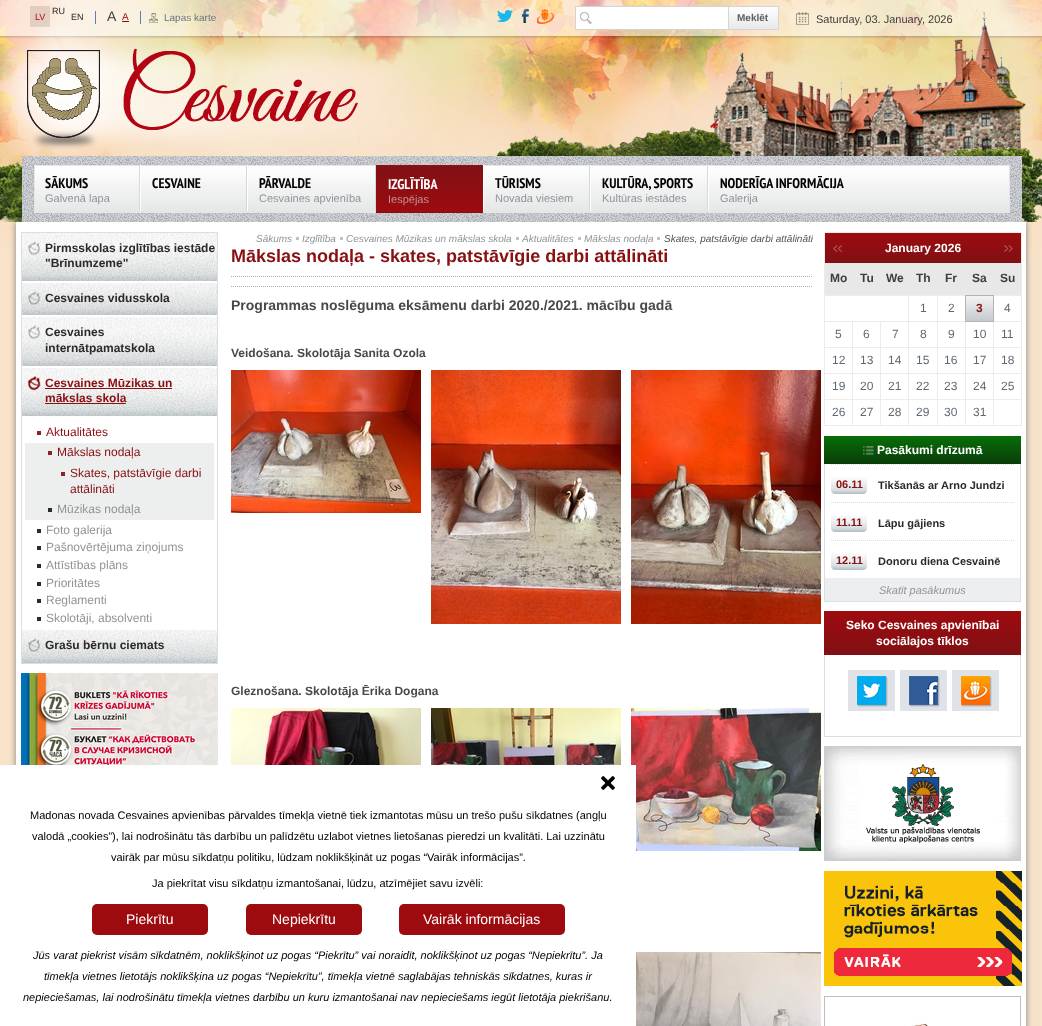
<!DOCTYPE html>
<meta charset="utf-8">
<style>body { margin: 0 } canvas { display: block }</style>
<canvas id="canvas" width="1042" height="1026"></canvas>
<img id="img1" src="images/1.png" hidden>
<img id="img2" src="images/2.png" hidden>
<img id="img3" src="images/9.png" hidden>
<img id="img4" src="images/10.png" hidden>
<img id="img5" src="images/3.png" hidden>
<img id="img6" src="images/4.png" hidden>
<img id="img7" src="images/5.png" hidden>
<img id="img8" src="images/6.png" hidden>
<img id="img9" src="images/7.png" hidden>
<img id="img10" src="images/8.png" hidden>
<img id="img11" src="images/11.png" hidden>
<img id="img12" src="images/12.png" hidden>
<img id="img13" src="images/13.png" hidden>
<img id="img14" src="images/14.png" hidden>
<img id="img15" src="images/15.png" hidden>
<img id="img16" src="images/16.png" hidden>
<img id="img17" src="images/17.png" hidden>
<img id="img18" src="images/18.png" hidden>
<img id="img19" src="images/19.png" hidden>
<img id="img20" src="images/20.png" hidden>
<img id="img21" src="images/21.png" hidden>
<img id="img22" src="images/22.png" hidden>
<img id="img23" src="images/23.png" hidden>
<img id="img24" src="images/24.png" hidden>
<img id="img25" src="images/25.png" hidden>
<img id="img26" src="images/26.png" hidden>
<img id="img27" src="images/27.png" hidden>
<img id="img28" src="images/28.png" hidden>
<img id="img29" src="images/29.png" hidden>
<img id="img30" src="images/30.png" hidden>
<img id="img31" src="images/31.png" hidden>
<img id="img32" src="images/32.png" hidden>
<img id="img33" src="images/33.png" hidden>
<img id="img34" src="images/34.png" hidden>
<img id="img35" src="images/35.png" hidden>
<img id="img36" src="images/36.png" hidden>
<img id="img37" src="images/37.png" hidden>
<img id="img38" src="images/38.png" hidden>
<img id="img39" src="images/39.png" hidden>
<script>
window.onload = function () {
    const canvas = document.getElementById('canvas');
    const context = canvas.getContext('2d');
    context.miterLimit = 4;
    context.fontKerning = 'normal';
    let gradient;

    context.fillStyle = 'rgb(248, 226, 201)';
    context.fillRect(0, 0, 1042, 1026);
    context.drawImage(document.getElementById('img1'), 0, 0, 1042, 369);
    context.drawImage(document.getElementById('img2'), 0, 0, 1042, 39);
    context.fillStyle = 'rgb(128, 128, 128)';
    context.filter = 'blur(3px)';
    context.beginPath();
    context.rect(16, 222, 1010, 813);
    context.fill();
    context.filter = 'none';
    context.drawImage(document.getElementById('img3'), 0, 11, 1042, 211);
    context.drawImage(document.getElementById('img4'), 0, 23, 434, 133);
    context.fillStyle = 'rgba(0, 0, 0, 0.1)';
    context.fillRect(30, 6, 20, 21);
    context.fillStyle = 'rgb(97, 127, 169)';
    context.fillRect(95, 11, 1, 13);
    context.fillStyle = 'rgb(144, 13, 17)';
    context.fillRect(122, 21, 7, 1);
    context.drawImage(document.getElementById('img5'), 149, 13, 9, 10);
    context.fillStyle = 'rgb(97, 127, 169)';
    context.fillRect(140, 11, 1, 13);
    context.drawImage(document.getElementById('img6'), 497, 10, 16, 12);
    context.drawImage(document.getElementById('img7'), 522, 9, 7, 14);
    context.drawImage(document.getElementById('img8'), 537, 9, 17, 15);
    context.fillStyle = 'rgb(255, 255, 255)';
    context.fillRect(576, 7, 152, 22);
    context.drawImage(document.getElementById('img9'), 580, 12, 12, 12);
    context.strokeStyle = 'rgb(211, 212, 212)';
    context.strokeRect(575.5, 6.5, 153, 23);
    gradient = context.createLinearGradient(754, 7, 754, 29);
    gradient.addColorStop(0, 'rgb(254, 254, 254)');
    gradient.addColorStop(1, 'rgb(231, 233, 233)');
    context.fillStyle = gradient;
    context.fillRect(729, 7, 49, 22);
    context.fillStyle = 'rgb(211, 212, 212)';
    context.fillRect(729, 6, 50, 1);
    context.fillRect(778, 6, 1, 24);
    context.fillRect(729, 29, 50, 1);
    context.drawImage(document.getElementById('img10'), 796, 12, 13, 13);
    context.drawImage(document.getElementById('img11'), 22, 156, 1000, 66);
    gradient = context.createLinearGradient(522, 166, 522, 212);
    gradient.addColorStop(0, 'rgb(255, 255, 255)');
    gradient.addColorStop(1, 'rgb(229, 230, 230)');
    context.fillStyle = gradient;
    context.fillRect(35, 166, 974, 46);
    context.strokeStyle = 'rgb(229, 230, 230)';
    context.strokeRect(34.5, 165.5, 975, 47);
    context.fillStyle = 'rgb(214, 217, 217)';
    context.fillRect(139, 165, 1, 46);
    context.fillRect(246, 165, 1, 46);
    context.fillStyle = 'rgb(255, 255, 255)';
    context.fillRect(140, 165, 1, 46);
    context.fillStyle = 'rgb(214, 217, 217)';
    context.fillRect(375, 165, 1, 46);
    context.fillStyle = 'rgb(255, 255, 255)';
    context.fillRect(247, 165, 1, 46);
    gradient = context.createLinearGradient(430, 120, 430, 166);
    gradient.addColorStop(0, 'rgb(128, 17, 20)');
    gradient.addColorStop(1, 'rgb(157, 11, 15)');
    context.fillStyle = gradient;
    context.fillRect(376, 165, 107, 1);
    gradient = context.createLinearGradient(430, 166, 430, 212);
    gradient.addColorStop(0, 'rgb(128, 17, 20)');
    gradient.addColorStop(1, 'rgb(157, 11, 15)');
    context.fillStyle = gradient;
    context.fillRect(376, 166, 107, 46);
    gradient = context.createLinearGradient(430, 212, 430, 258);
    gradient.addColorStop(0, 'rgb(128, 17, 20)');
    gradient.addColorStop(1, 'rgb(157, 11, 15)');
    context.fillStyle = gradient;
    context.fillRect(376, 212, 107, 1);
    context.fillStyle = 'rgb(214, 217, 217)';
    context.fillRect(589, 165, 1, 46);
    context.fillStyle = 'rgb(255, 255, 255)';
    context.fillRect(483, 165, 1, 46);
    context.fillStyle = 'rgb(214, 217, 217)';
    context.fillRect(707, 165, 1, 46);
    context.fillStyle = 'rgb(255, 255, 255)';
    context.fillRect(590, 165, 1, 46);
    context.fillRect(708, 165, 1, 46);
    context.fillRect(16, 222, 1010, 804);
    context.strokeStyle = 'rgb(219, 223, 229)';
    context.strokeRect(21.5, 232.5, 196, 431);
    context.drawImage(document.getElementById('img12'), 22, 233, 195, 48);
    context.drawImage(document.getElementById('img13'), 28, 241, 12, 14);
    context.drawImage(document.getElementById('img14'), 22, 283, 195, 32);
    context.drawImage(document.getElementById('img15'), 28, 291, 12, 14);
    context.drawImage(document.getElementById('img16'), 22, 317, 195, 49);
    context.drawImage(document.getElementById('img17'), 28, 325, 12, 14);
    context.drawImage(document.getElementById('img12'), 22, 368, 195, 48);
    context.drawImage(document.getElementById('img18'), 27, 376, 14, 15);
    context.fillStyle = 'rgb(136, 15, 18)';
    context.fillRect(45, 388, 127, 1);
    context.fillRect(45, 403, 81, 1);
    context.fillStyle = 'rgb(141, 34, 36)';
    context.fillRect(37, 431, 4, 4);
    context.fillStyle = 'rgb(237, 238, 238)';
    context.fillRect(25, 443, 189, 77);
    context.fillStyle = 'rgb(141, 34, 36)';
    context.fillRect(48, 451, 4, 4);
    context.fillRect(61, 472, 4, 4);
    context.fillStyle = 'rgb(45, 41, 41)';
    context.fillRect(48, 508, 4, 4);
    context.fillRect(37, 529, 4, 4);
    context.fillRect(37, 546, 4, 4);
    context.fillRect(37, 564, 4, 4);
    context.fillRect(37, 582, 4, 4);
    context.fillRect(37, 599, 4, 4);
    context.fillRect(37, 617, 4, 4);
    context.drawImage(document.getElementById('img19'), 22, 630, 195, 33);
    context.drawImage(document.getElementById('img20'), 28, 638, 12, 14);
    context.drawImage(document.getElementById('img21'), 21, 673, 197, 92);
    context.fillStyle = 'rgb(192, 194, 194)';
    context.fillRect(296, 237, 3, 3);
    context.fillRect(340, 237, 3, 3);
    context.fillRect(516, 237, 3, 3);
    context.fillRect(578, 237, 3, 3);
    context.fillRect(657, 237, 3, 3);
    context.beginPath();
    context.moveTo(231, 276.5);
    context.lineTo(813, 276.5);
    context.strokeStyle = 'rgb(174, 171, 171)';
    context.setLineDash([1, 1]);
    context.stroke();
    context.beginPath();
    context.moveTo(231, 286.5);
    context.lineTo(813, 286.5);
    context.stroke();
    context.drawImage(document.getElementById('img22'), 231, 370, 190, 143);
    context.drawImage(document.getElementById('img23'), 431, 370, 190, 254);
    context.drawImage(document.getElementById('img24'), 631, 370, 190, 254);
    context.drawImage(document.getElementById('img25'), 231, 708, 190, 57);
    context.drawImage(document.getElementById('img26'), 431, 708, 190, 57);
    context.drawImage(document.getElementById('img27'), 631, 708, 190, 143);
    context.drawImage(document.getElementById('img28'), 636, 952, 185, 74);
    context.fillStyle = 'rgb(237, 236, 234)';
    context.fillRect(824, 232, 198, 1);
    context.fillRect(1021, 232, 1, 194);
    context.fillRect(824, 425, 198, 1);
    context.fillRect(824, 232, 1, 194);
    gradient = context.createLinearGradient(924, 232, 924, 263);
    gradient.addColorStop(0, 'rgb(158, 11, 15)');
    gradient.addColorStop(1, 'rgb(128, 16, 20)');
    context.fillStyle = gradient;
    context.fillRect(825, 233, 196, 30);
    context.drawImage(document.getElementById('img29'), 833, 245, 9, 7);
    context.drawImage(document.getElementById('img30'), 1004, 245, 9, 7);
    context.fillStyle = 'rgb(232, 232, 232)';
    context.fillRect(825, 263, 196, 32);
    context.fillStyle = 'rgb(237, 236, 234)';
    context.fillRect(937, 295, 29, 1);
    context.fillRect(993, 347, 29, 1);
    context.fillRect(993, 373, 29, 1);
    context.fillRect(993, 399, 29, 1);
    context.fillRect(993, 399, 1, 27);
    context.fillRect(965, 399, 29, 1);
    context.fillRect(993, 373, 1, 27);
    context.fillRect(965, 373, 29, 1);
    context.fillRect(993, 347, 1, 27);
    context.fillRect(965, 347, 29, 1);
    context.fillRect(965, 399, 1, 27);
    context.fillRect(937, 399, 29, 1);
    context.fillRect(965, 373, 1, 27);
    context.fillRect(937, 373, 29, 1);
    context.fillRect(965, 347, 1, 27);
    context.fillRect(937, 347, 29, 1);
    context.fillRect(965, 321, 1, 27);
    context.fillRect(937, 321, 29, 1);
    context.fillRect(937, 399, 1, 27);
    context.fillRect(908, 399, 30, 1);
    context.fillRect(937, 373, 1, 27);
    context.fillRect(908, 373, 30, 1);
    context.fillRect(937, 347, 1, 27);
    context.fillRect(908, 347, 30, 1);
    context.fillRect(937, 321, 1, 27);
    context.fillRect(908, 321, 30, 1);
    context.fillRect(937, 295, 1, 27);
    context.fillRect(908, 295, 30, 1);
    context.fillRect(908, 399, 1, 27);
    context.fillRect(880, 399, 29, 1);
    context.fillRect(908, 373, 1, 27);
    context.fillRect(880, 373, 29, 1);
    context.fillRect(908, 347, 1, 27);
    context.fillRect(880, 347, 29, 1);
    context.fillRect(908, 321, 1, 27);
    context.fillRect(880, 321, 29, 1);
    context.fillRect(908, 295, 1, 27);
    context.fillRect(824, 295, 85, 1);
    gradient = context.createLinearGradient(980, 296, 980, 321);
    gradient.addColorStop(0, 'rgb(243, 243, 243)');
    gradient.addColorStop(1, 'rgb(196, 202, 207)');
    context.fillStyle = gradient;
    context.fillRect(966, 296, 27, 25);
    context.fillStyle = 'rgb(237, 236, 234)';
    context.fillRect(993, 295, 29, 1);
    context.fillRect(993, 321, 29, 1);
    context.fillRect(993, 321, 1, 27);
    context.strokeStyle = 'rgb(180, 180, 180)';
    context.setLineDash([]);
    context.strokeRect(965.5, 295.5, 28, 26);
    context.fillRect(880, 399, 1, 27);
    context.fillRect(852, 399, 29, 1);
    context.fillRect(880, 373, 1, 27);
    context.fillRect(852, 373, 29, 1);
    context.fillRect(880, 347, 1, 27);
    context.fillRect(852, 347, 29, 1);
    context.fillRect(880, 321, 1, 27);
    context.fillRect(852, 321, 29, 1);
    context.fillRect(852, 399, 1, 27);
    context.fillRect(824, 399, 29, 1);
    context.fillRect(852, 373, 1, 27);
    context.fillRect(824, 373, 29, 1);
    context.fillRect(852, 347, 1, 27);
    context.fillRect(824, 347, 29, 1);
    context.fillRect(852, 321, 1, 27);
    context.fillRect(824, 321, 29, 1);
    context.strokeStyle = 'rgb(219, 223, 229)';
    context.strokeRect(824.5, 436.5, 196, 165);
    gradient = context.createLinearGradient(923, 436, 923, 464);
    gradient.addColorStop(0, 'rgb(7, 111, 7)');
    gradient.addColorStop(1, 'rgb(10, 60, 10)');
    context.fillStyle = gradient;
    context.fillRect(824, 436, 197, 28);
    context.drawImage(document.getElementById('img31'), 863, 446, 11, 9);
    context.beginPath();
    context.moveTo(831, 464.5);
    context.lineTo(1014, 464.5);
    context.strokeStyle = 'rgb(218, 222, 224)';
    context.setLineDash([1, 1]);
    context.stroke();
    context.drawImage(document.getElementById('img32'), 831, 477, 36, 17);
    context.beginPath();
    context.moveTo(831, 502.5);
    context.lineTo(1014, 502.5);
    context.stroke();
    context.drawImage(document.getElementById('img32'), 831, 515, 36, 17);
    context.beginPath();
    context.moveTo(831, 540.5);
    context.lineTo(1014, 540.5);
    context.stroke();
    context.drawImage(document.getElementById('img32'), 831, 553, 36, 17);
    context.fillStyle = 'rgb(237, 238, 239)';
    context.fillRect(825, 578, 195, 23);
    context.strokeStyle = 'rgb(219, 223, 229)';
    context.setLineDash([]);
    context.strokeRect(824.5, 611.5, 196, 125);
    gradient = context.createLinearGradient(923, 611, 923, 655);
    gradient.addColorStop(0, 'rgb(158, 11, 15)');
    gradient.addColorStop(1, 'rgb(128, 16, 20)');
    context.fillStyle = gradient;
    context.fillRect(824, 611, 197, 44);
    context.fillStyle = 'rgb(223, 227, 232)';
    context.fillRect(848, 670, 47, 41);
    context.drawImage(document.getElementById('img33'), 857, 676, 31, 31);
    context.fillRect(900, 670, 47, 41);
    context.drawImage(document.getElementById('img34'), 909, 676, 31, 31);
    context.fillRect(952, 670, 47, 41);
    context.drawImage(document.getElementById('img35'), 961, 676, 31, 31);
    context.drawImage(document.getElementById('img36'), 824, 746, 197, 115);
    context.drawImage(document.getElementById('img37'), 824, 871, 198, 115);
    context.drawImage(document.getElementById('img38'), 824, 996, 197, 30);
    context.fillStyle = 'rgb(255, 255, 255)';
    context.fillRect(0, 765, 636, 261);
    context.drawImage(document.getElementById('img39'), 601, 776, 14, 14);
    context.fillStyle = 'rgb(158, 11, 15)';
    context.beginPath();
    context.roundRect(92, 904, 116, 31, 5);
    context.fill();
    context.beginPath();
    context.roundRect(246, 904, 116, 31, 5);
    context.fill();
    context.beginPath();
    context.roundRect(399, 904, 166, 31, 5);
    context.fill();
    context.font = '9px Liberation Sans';
    context.fillStyle = 'rgb(45, 41, 41)';
    context.fillText('RU', 52, 14);
    context.fillStyle = 'rgb(180, 4, 20)';
    context.fillText('LV', 35, 20);
    context.fillStyle = 'rgb(45, 41, 41)';
    context.fillText('EN', 71, 20);
    context.font = '14px Liberation Sans';
    context.fillStyle = 'rgb(65, 61, 61)';
    context.fillText('A', 107, 21);
    context.font = '10px Liberation Sans';
    context.fillStyle = 'rgb(144, 13, 17)';
    context.fillText('A', 122, 20);
    context.fillStyle = 'rgb(106, 116, 129)';
    context.fillText('Lapas karte', 164, 21);
    context.font = 'bold 10px Liberation Sans';
    context.fillStyle = 'rgb(93, 95, 100)';
    context.fillText('Meklēt', 737, 21);
    context.font = '11px Liberation Sans';
    context.fillStyle = 'rgb(65, 61, 61)';
    context.fillText('Saturday, 03. January, 2026', 816, 23);
    context.font = 'bold 14px PT Sans Narrow';
    context.fillStyle = 'rgb(0, 0, 0)';
    context.fillText('SĀKUMS', 45, 188);
    context.font = '11px Liberation Sans';
    context.fillStyle = 'rgb(141, 149, 156)';
    context.fillText('Galvenā lapa', 45, 202);
    context.font = 'bold 14px PT Sans Narrow';
    context.fillStyle = 'rgb(0, 0, 0)';
    context.fillText('CESVAINE', 152, 188);
    context.fillText('PĀRVALDE', 259, 188);
    context.font = '11px Liberation Sans';
    context.fillStyle = 'rgb(141, 149, 156)';
    context.fillText('Cesvaines apvienība', 259, 202);
    context.font = 'bold 14px PT Sans Narrow';
    context.fillStyle = 'rgb(255, 255, 255)';
    context.fillText('IZGLĪTĪBA', 388, 189);
    context.font = '11px Liberation Sans';
    context.fillStyle = 'rgb(193, 143, 143)';
    context.fillText('Iespējas', 388, 203);
    context.font = 'bold 14px PT Sans Narrow';
    context.fillStyle = 'rgb(0, 0, 0)';
    context.fillText('TŪRISMS', 495, 188);
    context.font = '11px Liberation Sans';
    context.fillStyle = 'rgb(141, 149, 156)';
    context.fillText('Novada viesiem', 495, 202);
    context.font = 'bold 14px PT Sans Narrow';
    context.fillStyle = 'rgb(0, 0, 0)';
    context.fillText('KULTŪRA, SPORTS', 602, 188);
    context.font = '11px Liberation Sans';
    context.fillStyle = 'rgb(141, 149, 156)';
    context.fillText('Kultūras iestādes', 602, 202);
    context.font = 'bold 14px PT Sans Narrow';
    context.fillStyle = 'rgb(0, 0, 0)';
    context.fillText('NODERĪGA INFORMĀCIJA', 720, 188);
    context.font = '11px Liberation Sans';
    context.fillStyle = 'rgb(141, 149, 156)';
    context.fillText('Galerija', 720, 202);
    context.font = 'bold 12px Liberation Sans';
    context.fillStyle = 'rgb(45, 41, 41)';
    context.fillText('Pirmsskolas izglītības iestāde', 45, 252);
    context.fillText('"Brīnumzeme"', 45, 267);
    context.fillText('Cesvaines vidusskola', 45, 302);
    context.fillText('Cesvaines', 45, 336);
    context.fillText('internātpamatskola', 45, 352);
    context.fillStyle = 'rgb(136, 15, 18)';
    context.fillText('Cesvaines Mūzikas un', 45, 387);
    context.fillText('mākslas skola', 45, 402);
    context.font = '12px Liberation Sans';
    context.fillText('Aktualitātes', 46, 436);
    context.fillText('Mākslas nodaļa', 57, 456);
    context.fillText('Skates, patstāvīgie darbi', 70, 477);
    context.fillText('attālināti', 70, 493);
    context.fillStyle = 'rgb(147, 147, 147)';
    context.fillText('Mūzikas nodaļa', 57, 513);
    context.fillText('Foto galerija', 46, 534);
    context.fillText('Pašnovērtējuma ziņojums', 46, 551);
    context.fillText('Attīstības plāns', 46, 569);
    context.fillText('Prioritātes', 46, 587);
    context.fillText('Reglamenti', 46, 604);
    context.fillText('Skolotāji, absolventi', 46, 622);
    context.font = 'bold 12px Liberation Sans';
    context.fillStyle = 'rgb(45, 41, 41)';
    context.fillText('Grašu bērnu ciemats', 45, 649);
    context.font = 'italic 10px Liberation Sans';
    context.fillStyle = 'rgb(141, 149, 156)';
    context.fillText('Sākums', 256, 242);
    context.fillText('Izglītība', 302, 242);
    context.fillText('Cesvaines Mūzikas un mākslas skola', 346, 242);
    context.fillText('Aktualitātes', 522, 242);
    context.fillText('Mākslas nodaļa', 584, 242);
    context.fillStyle = 'rgb(80, 83, 83)';
    context.fillText('Skates, patstāvīgie darbi attālināti', 664, 242);
    context.font = 'bold 18px Liberation Sans';
    context.fillStyle = 'rgb(136, 15, 18)';
    context.fillText('Mākslas nodaļa - skates, patstāvīgie darbi attālināti', 231, 262);
    context.font = 'bold 14px Liberation Sans';
    context.fillStyle = 'rgb(76, 72, 72)';
    context.fillText('Programmas noslēguma eksāmenu darbi 2020./2021. mācību gadā', 231, 310);
    context.font = 'bold 12px Liberation Sans';
    context.fillText('Veidošana. Skolotāja Sanita Ozola', 231, 357);
    context.fillText('Gleznošana. Skolotāja Ērika Dogana', 231, 695);
    context.fillStyle = 'rgb(255, 255, 255)';
    context.fillText('January 2026', 885, 252);
    context.fillStyle = 'rgb(65, 61, 61)';
    context.fillText('Mo', 830, 282);
    context.fillText('Tu', 860, 282);
    context.fillText('We', 886, 282);
    context.fillText('Th', 916, 282);
    context.fillText('Fr', 945, 282);
    context.fillText('Sa', 972, 282);
    context.fillText('Su', 1000, 282);
    context.font = '12px Liberation Sans';
    context.fillStyle = 'rgb(96, 105, 114)';
    context.fillText('1', 920, 312);
    context.fillText('2', 948, 312);
    context.font = 'bold 12px Liberation Sans';
    context.fillStyle = 'rgb(136, 15, 18)';
    context.fillText('3', 976, 312);
    context.font = '12px Liberation Sans';
    context.fillStyle = 'rgb(96, 105, 114)';
    context.fillText('4', 1004, 312);
    context.fillText('5', 835, 338);
    context.fillText('6', 863, 338);
    context.fillText('7', 892, 338);
    context.fillText('8', 920, 338);
    context.fillText('9', 948, 338);
    context.fillText('10', 973, 338);
    context.fillText('11', 1001, 338);
    context.fillText('12', 832, 364);
    context.fillText('13', 860, 364);
    context.fillText('14', 888, 364);
    context.fillText('15', 916, 364);
    context.fillText('16', 944, 364);
    context.fillText('17', 973, 364);
    context.fillText('18', 1001, 364);
    context.fillText('19', 832, 390);
    context.fillText('20', 860, 390);
    context.fillText('21', 888, 390);
    context.fillText('22', 916, 390);
    context.fillText('23', 944, 390);
    context.fillText('24', 973, 390);
    context.fillText('25', 1001, 390);
    context.fillText('26', 832, 416);
    context.fillText('27', 860, 416);
    context.fillText('28', 888, 416);
    context.fillText('29', 916, 416);
    context.fillText('30', 944, 416);
    context.fillText('31', 973, 416);
    context.font = 'bold 12px Liberation Sans';
    context.fillStyle = 'rgb(255, 255, 255)';
    context.fillText('Pasākumi drīzumā', 877, 454);
    context.font = 'bold 11px Liberation Sans';
    context.fillStyle = 'rgb(136, 15, 18)';
    context.fillText('06.11', 836, 488);
    context.fillStyle = 'rgb(45, 41, 41)';
    context.fillText('Tikšanās ar Arno Jundzi', 878, 489);
    context.fillStyle = 'rgb(136, 15, 18)';
    context.fillText('11.11', 836, 526);
    context.fillStyle = 'rgb(45, 41, 41)';
    context.fillText('Lāpu gājiens', 878, 527);
    context.fillStyle = 'rgb(136, 15, 18)';
    context.fillText('12.11', 836, 564);
    context.fillStyle = 'rgb(45, 41, 41)';
    context.fillText('Donoru diena Cesvainē', 878, 565);
    context.font = 'italic 11px Liberation Sans';
    context.fillStyle = 'rgb(147, 147, 147)';
    context.fillText('Skatīt pasākumus', 879, 594);
    context.font = 'bold 12px Liberation Sans';
    context.fillStyle = 'rgb(255, 255, 255)';
    context.fillText('Seko Cesvaines apvienībai', 846, 629);
    context.fillText('sociālajos tīklos', 876, 645);
    context.font = '11px Liberation Sans';
    context.fillStyle = 'rgb(0, 0, 0)';
    context.fillText('Madonas novada Cesvaines apvienības pārvaldes tīmekļa vietnē tiek izmantotas mūsu un trešo pušu sīkdatnes (angļu', 30, 819);
    context.fillText('valodā „cookies”), lai nodrošinātu tās darbību un palīdzētu uzlabot vietnes lietošanas pieredzi un kvalitāti. Lai uzzinātu', 32, 840);
    context.fillText('vairāk par mūsu sīkdatņu politiku, lūdzam noklikšķināt uz pogas “Vairāk informācijas”.', 111, 861);
    context.fillText('Ja piekrītat visu sīkdatņu izmantošanai, lūdzu, atzīmējiet savu izvēli:', 152, 887);
    context.font = '14px Liberation Sans';
    context.fillStyle = 'rgb(255, 255, 255)';
    context.fillText('Piekrītu', 126, 924);
    context.fillText('Nepiekrītu', 272, 924);
    context.fillText('Vairāk informācijas', 423, 924);
    context.font = 'italic 11px Liberation Sans';
    context.fillStyle = 'rgb(0, 0, 0)';
    context.fillText('Jūs varat piekrist visām sīkdatnēm, noklikšķinot uz pogas “Piekrītu” vai noraidīt, noklikšķinot uz pogas “Nepiekrītu”. Ja', 33, 959);
    context.fillText('tīmekļa vietnes lietotājs noklikšķina uz pogas “Nepiekrītu”, tīmekļa vietnē saglabājas tehniskās sīkdatnes, kuras ir', 44, 980);
    context.fillText('nepieciešamas, lai nodrošinātu tīmekļa vietnes darbību un kuru izmantošanai nav nepieciešams iegūt lietotāja piekrišanu.', 23, 1001);
};
</script>
